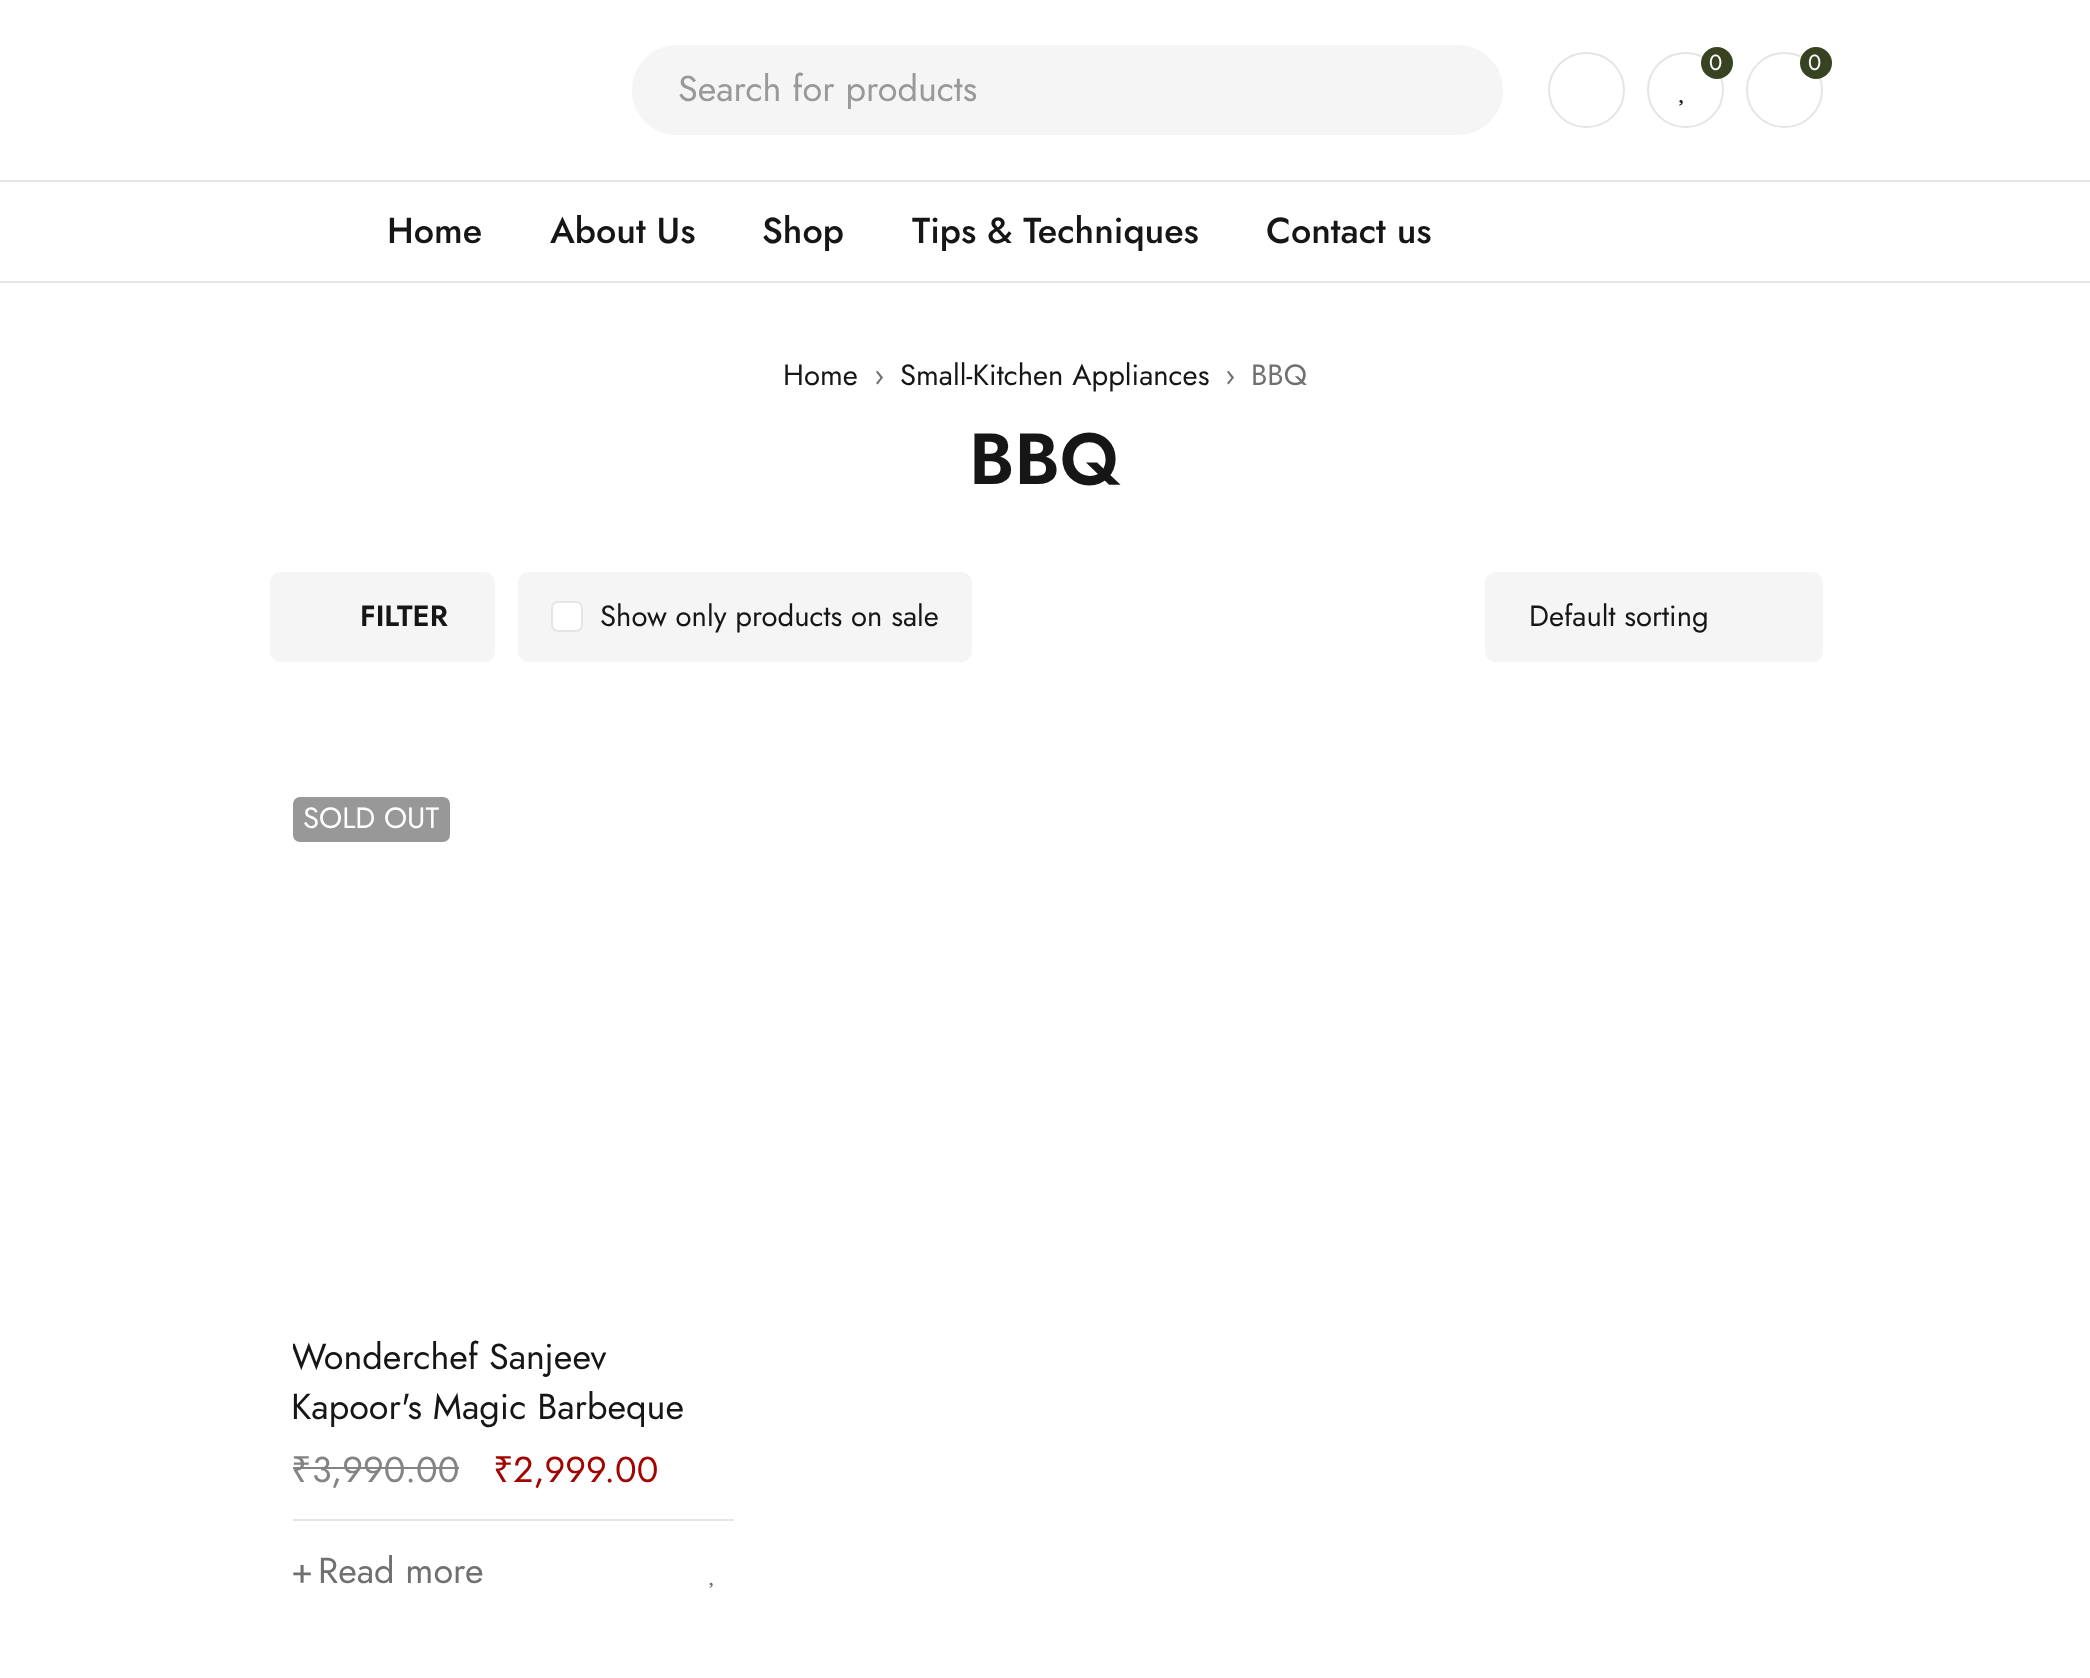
<!DOCTYPE html>
<meta charset="utf-8">
<style>body { margin: 0 } canvas { display: block }</style>
<canvas id="canvas" width="2090" height="1678"></canvas>
<img id="img1" src="images/1.png" hidden>
<img id="img2" src="images/2.png" hidden>
<script>
window.onload = function () {
    const canvas = document.getElementById('canvas');
    const context = canvas.getContext('2d');
    context.miterLimit = 4;
    context.fontKerning = 'normal';

    context.fillStyle = 'rgb(255, 255, 255)';
    context.fillRect(0, 0, 2090, 1678);
    context.beginPath();
    context.roundRect(1549, 53, 75, 74, 37);
    context.strokeStyle = 'rgb(229, 229, 229)';
    context.lineWidth = 2;
    context.stroke();
    context.beginPath();
    context.roundRect(1648, 53, 75, 74, 37);
    context.stroke();
    context.fillStyle = 'rgb(56, 67, 33)';
    context.beginPath();
    context.arc(1717, 63, 16, 0, 2 * Math.PI);
    context.fill();
    context.drawImage(document.getElementById('img1'), 1679, 100, 4, 6);
    context.beginPath();
    context.roundRect(1747, 53, 75, 74, 37);
    context.stroke();
    context.beginPath();
    context.arc(1816, 63, 16, 0, 2 * Math.PI);
    context.fill();
    context.fillStyle = 'rgb(246, 245, 246)';
    context.beginPath();
    context.roundRect(633, 46, 869, 88, 44);
    context.fill();
    context.strokeStyle = 'rgb(246, 245, 246)';
    context.stroke();
    context.fillStyle = 'rgb(229, 229, 229)';
    context.fillRect(0, 180, 2090, 2);
    context.fillRect(0, 281, 2090, 2);
    context.fillStyle = 'rgb(246, 245, 246)';
    context.beginPath();
    context.roundRect(270, 572, 225, 90, 11);
    context.fill();
    context.beginPath();
    context.roundRect(518, 572, 454, 90, 11);
    context.fill();
    context.fillStyle = 'rgb(255, 255, 255)';
    context.beginPath();
    context.roundRect(552, 602, 30, 29, 6);
    context.fill();
    context.strokeStyle = 'rgb(229, 229, 229)';
    context.stroke();
    context.fillStyle = 'rgb(246, 245, 246)';
    context.beginPath();
    context.roundRect(1485, 572, 338, 90, 11);
    context.fill();
    context.fillStyle = 'rgb(152, 152, 152)';
    context.beginPath();
    context.roundRect(293, 797, 157, 45, 7);
    context.fill();
    context.fillStyle = 'rgb(132, 132, 132)';
    context.fillRect(293, 1467, 20, 2);
    context.fillRect(313, 1467, 146, 2);
    context.fillStyle = 'rgb(229, 229, 229)';
    context.fillRect(293, 1519, 441, 2);
    context.drawImage(document.getElementById('img2'), 709, 1582, 4, 6);
    context.font = '22px Jost';
    context.fillStyle = 'rgb(255, 255, 255)';
    context.fillText('0', 1709, 70);
    context.fillText('0', 1808, 70);
    context.font = '36px Jost';
    context.fillStyle = 'rgb(153, 153, 153)';
    context.fillText('Search for products', 678, 101);
    context.font = '500 36px Jost';
    context.fillStyle = 'rgb(22, 22, 22)';
    context.fillText('Home', 387, 243);
    context.fillText('About Us', 550, 243);
    context.fillText('Shop', 762, 243);
    context.fillText('Tips & Techniques', 912, 243);
    context.fillText('Contact us', 1266, 243);
    context.font = '29.25px Jost';
    context.fillText('Home', 783, 385);
    context.fillStyle = 'rgb(112, 112, 112)';
    context.fillText('›', 874, 385);
    context.fillStyle = 'rgb(22, 22, 22)';
    context.fillText('Small-Kitchen Appliances', 900, 385);
    context.fillStyle = 'rgb(112, 112, 112)';
    context.fillText('›', 1225, 385);
    context.fillText('BBQ', 1251, 385);
    context.font = '600 72px Jost';
    context.fillStyle = 'rgb(22, 22, 22)';
    context.fillText('BBQ', 969, 484);
    context.font = '600 29.25px Jost';
    context.fillText('FILTER', 360, 626);
    context.font = '29.25px Jost';
    context.fillText('Show only products on sale', 600, 626);
    context.fillText('Default sorting', 1529, 626);
    context.fillStyle = 'rgb(255, 255, 255)';
    context.fillText('SOLD OUT', 303, 828);
    context.save();
    context.beginPath();
    context.rect(293, 1334, 441, 99);
    context.clip();
    context.font = '36px Jost';
    context.fillStyle = 'rgb(22, 22, 22)';
    context.fillText('Wonderchef Sanjeev', 291, 1369);
    context.restore();
    context.font = '36px Jost';
    context.fillStyle = 'rgb(22, 22, 22)';
    context.fillText('Kapoor\'s Magic Barbeque', 291, 1419);
    context.font = '36px Noto Sans';
    context.fillStyle = 'rgb(132, 132, 132)';
    context.fillText('₹', 291, 1482);
    context.font = '36px Jost';
    context.fillText('3,990.00', 312, 1482);
    context.font = '36px Noto Sans';
    context.fillStyle = 'rgb(162, 4, 1)';
    context.fillText('₹', 493, 1482);
    context.font = '36px Jost';
    context.fillText('2,999.00', 513, 1482);
    context.fillStyle = 'rgb(112, 112, 112)';
    context.fillText('+', 291, 1583);
    context.fillText('Read more', 318, 1583);
};
</script>
